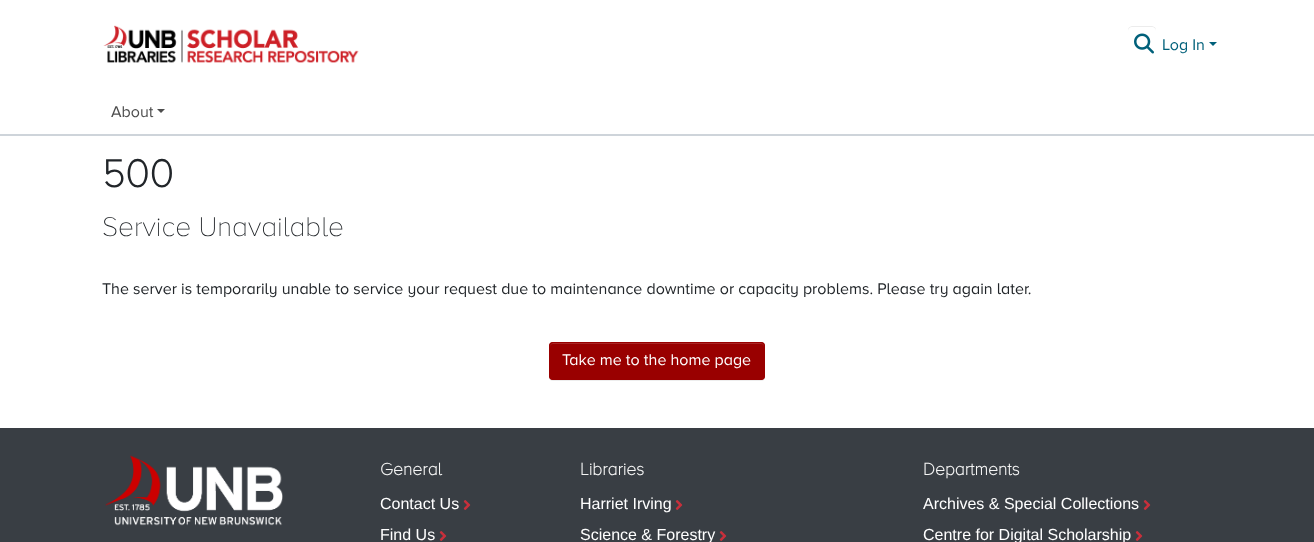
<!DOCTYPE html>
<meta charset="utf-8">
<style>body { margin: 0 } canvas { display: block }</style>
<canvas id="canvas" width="1314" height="542"></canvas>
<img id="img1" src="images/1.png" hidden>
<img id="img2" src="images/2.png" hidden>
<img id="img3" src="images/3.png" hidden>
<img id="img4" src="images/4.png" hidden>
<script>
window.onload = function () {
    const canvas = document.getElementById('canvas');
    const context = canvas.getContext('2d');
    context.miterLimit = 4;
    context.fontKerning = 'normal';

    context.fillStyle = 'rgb(255, 255, 255)';
    context.fillRect(0, 0, 1314, 542);
    context.fillStyle = 'rgb(206, 212, 218)';
    context.fillRect(0, 134, 1314, 2);
    context.drawImage(document.getElementById('img1'), 103, 25, 256, 38);
    context.fillStyle = 'rgb(236, 236, 236)';
    context.beginPath();
    context.moveTo(1132, 27);
    context.lineTo(1152, 27);
    context.bezierCurveTo(1154, 27, 1156, 29, 1156, 31);
    context.bezierCurveTo(1156, 26, 1153, 26, 1148.5, 26);
    context.lineTo(1135.5, 26);
    context.bezierCurveTo(1131, 26, 1128, 26, 1128, 31);
    context.bezierCurveTo(1128, 29, 1130, 27, 1132, 27);
    context.closePath();
    context.fill();
    context.drawImage(document.getElementById('img2'), 1134, 33, 20, 21);
    context.fillStyle = 'rgb(0, 96, 122)';
    context.beginPath();
    context.moveTo(1209, 42);
    context.lineTo(1217, 42);
    context.lineTo(1213, 46);
    context.closePath();
    context.fill();
    context.fillStyle = 'rgb(77, 77, 77)';
    context.beginPath();
    context.moveTo(157, 109);
    context.lineTo(165, 109);
    context.lineTo(161, 113);
    context.closePath();
    context.fill();
    context.fillStyle = 'rgba(0, 0, 0, 0.07)';
    context.filter = 'blur(0.5px)';
    context.beginPath();
    context.roundRect(549, 343, 216, 38, 4);
    context.fill();
    context.filter = 'none';
    context.fillStyle = 'rgb(153, 0, 0)';
    context.beginPath();
    context.roundRect(549, 342, 216, 38, 4);
    context.fill();
    context.fillStyle = 'rgb(168, 38, 38)';
    context.beginPath();
    context.moveTo(553, 344);
    context.lineTo(761, 344);
    context.bezierCurveTo(763, 344, 764, 345, 764, 347);
    context.lineTo(764, 346);
    context.bezierCurveTo(764, 344, 763, 343, 761, 343);
    context.lineTo(553, 343);
    context.bezierCurveTo(551, 343, 550, 344, 550, 346);
    context.lineTo(550, 347);
    context.bezierCurveTo(550, 345, 551, 344, 553, 344);
    context.closePath();
    context.fill();
    context.beginPath();
    context.roundRect(549.5, 342.5, 215, 37, 3.5);
    context.strokeStyle = 'rgb(153, 0, 0)';
    context.stroke();
    context.fillStyle = 'rgb(57, 62, 68)';
    context.fillRect(0, 428, 1314, 114);
    context.drawImage(document.getElementById('img3'), 105, 455, 178, 71);
    context.drawImage(document.getElementById('img4'), 463, 500, 8, 10);
    context.drawImage(document.getElementById('img4'), 439, 531, 8, 10);
    context.drawImage(document.getElementById('img4'), 675, 500, 8, 10);
    context.drawImage(document.getElementById('img4'), 719, 531, 8, 10);
    context.drawImage(document.getElementById('img4'), 1143, 500, 8, 10);
    context.drawImage(document.getElementById('img4'), 1135, 531, 8, 10);
    context.font = '16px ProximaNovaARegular';
    context.fillStyle = 'rgb(0, 96, 122)';
    context.fillText('Log In', 1162, 50);
    context.fillStyle = 'rgb(77, 77, 77)';
    context.fillText('About', 111, 117);
    context.font = 'bold 40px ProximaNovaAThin';
    context.fillStyle = 'rgb(33, 37, 41)';
    context.fillText('500', 102, 187);
    context.font = '100 28px ProximaNovaAThin';
    context.fillText('Service Unavailable', 102, 236);
    context.font = '16px ProximaNovaARegular';
    context.fillText('The server is temporarily unable to service your request due to maintenance downtime or capacity problems. Please try again later.', 102, 294);
    context.fillStyle = 'rgb(255, 255, 255)';
    context.fillText('Take me to the home page', 562, 365);
    context.font = 'bold 17.5px ProximaNovaAThin';
    context.fillStyle = 'rgb(244, 244, 244)';
    context.fillText('General', 380, 475);
    context.font = '16px Liberation Sans';
    context.fillStyle = 'rgb(255, 255, 255)';
    context.fillText('Contact Us', 380, 509);
    context.fillText('Find Us', 380, 540);
    context.font = 'bold 17.5px ProximaNovaAThin';
    context.fillStyle = 'rgb(244, 244, 244)';
    context.fillText('Libraries', 580, 475);
    context.font = '16px Liberation Sans';
    context.fillStyle = 'rgb(255, 255, 255)';
    context.fillText('Harriet Irving', 580, 509);
    context.fillText('Science & Forestry', 580, 540);
    context.font = 'bold 17.5px ProximaNovaAThin';
    context.fillStyle = 'rgb(244, 244, 244)';
    context.fillText('Departments', 923, 475);
    context.font = '16px Liberation Sans';
    context.fillStyle = 'rgb(255, 255, 255)';
    context.fillText('Archives & Special Collections', 923, 509);
    context.fillText('Centre for Digital Scholarship', 923, 540);
};
</script>
